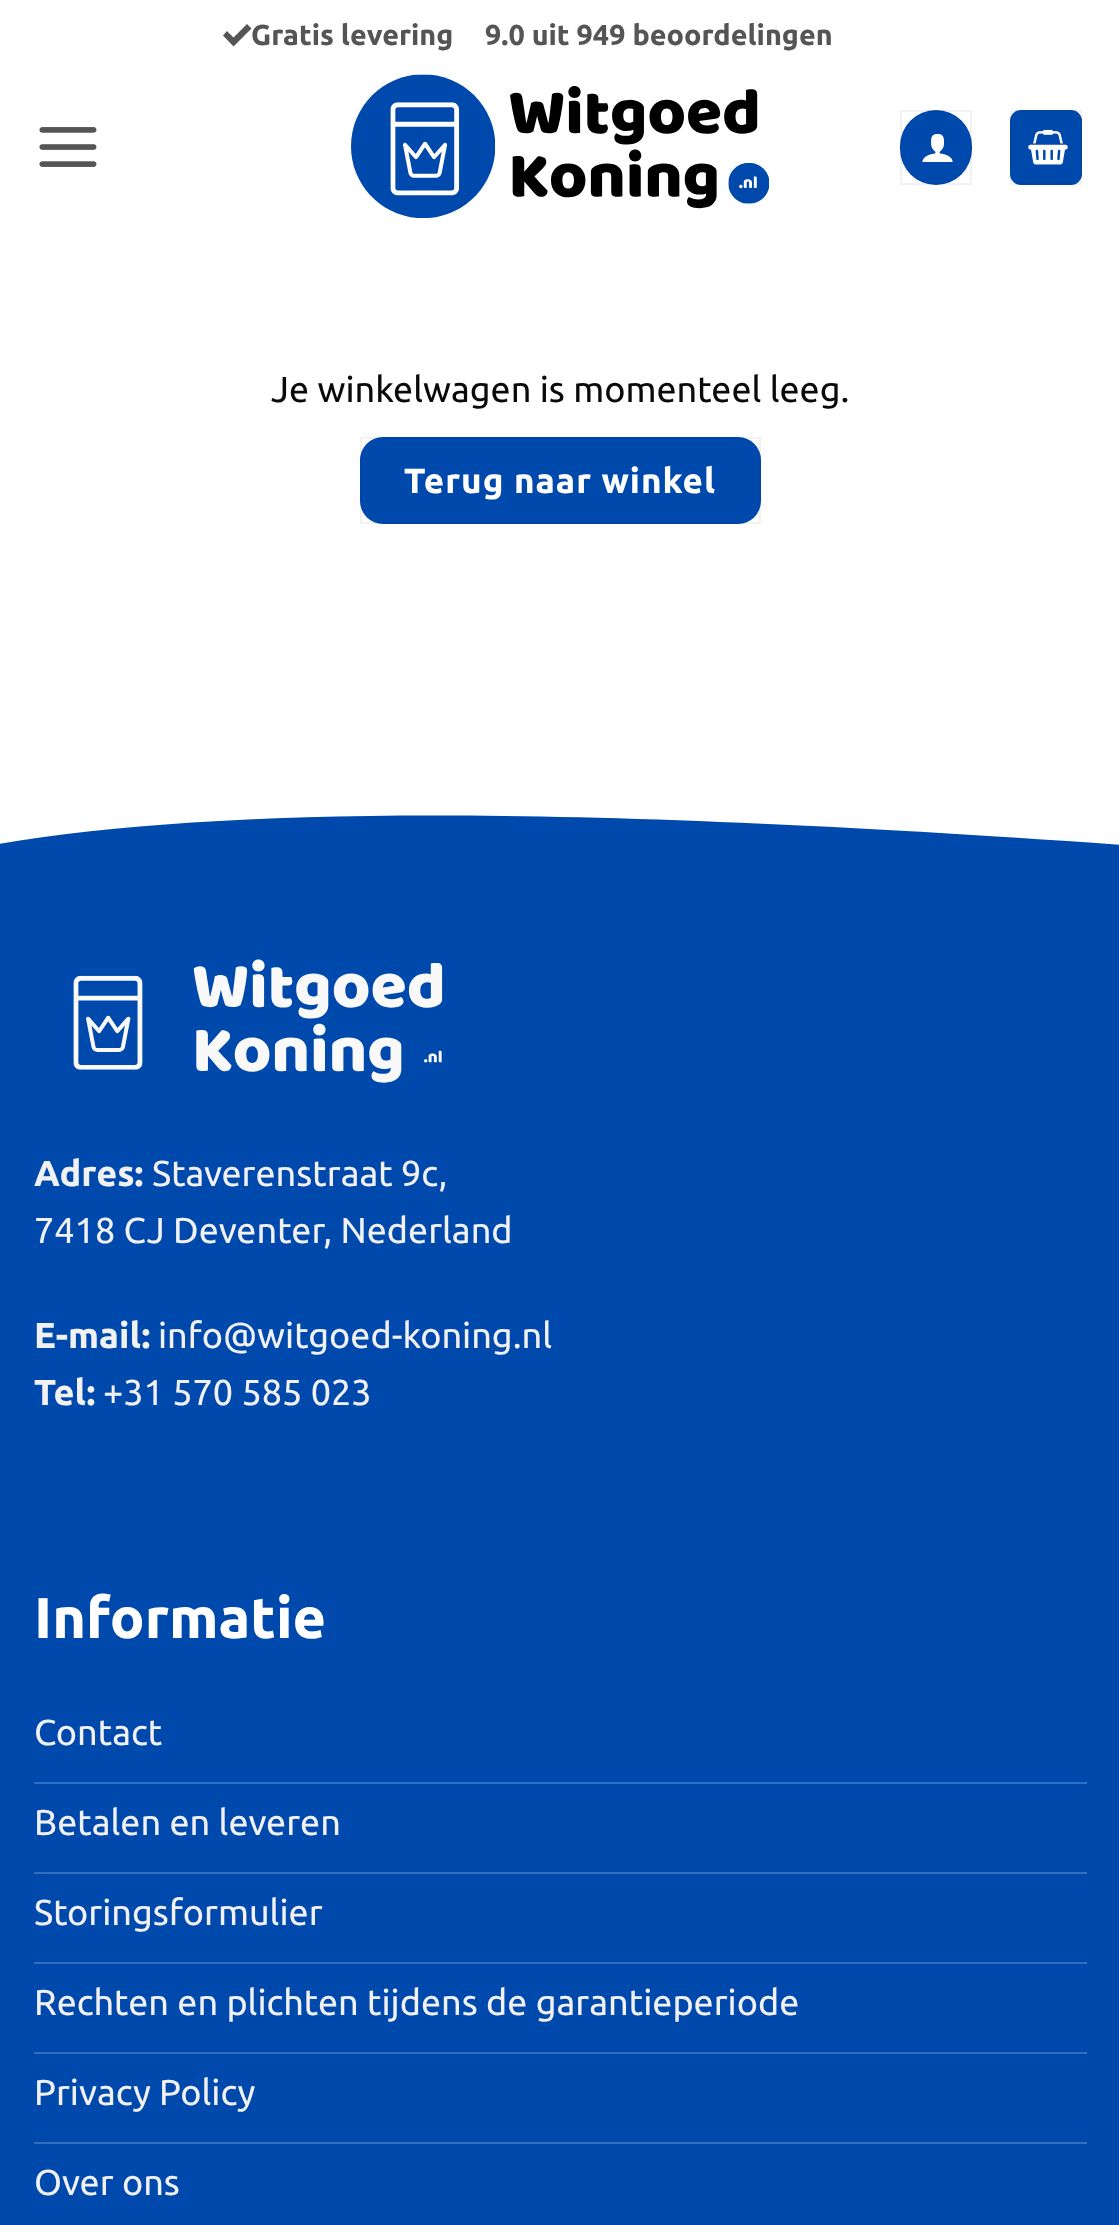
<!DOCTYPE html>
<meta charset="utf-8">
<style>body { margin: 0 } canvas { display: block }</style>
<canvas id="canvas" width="1119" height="2225"></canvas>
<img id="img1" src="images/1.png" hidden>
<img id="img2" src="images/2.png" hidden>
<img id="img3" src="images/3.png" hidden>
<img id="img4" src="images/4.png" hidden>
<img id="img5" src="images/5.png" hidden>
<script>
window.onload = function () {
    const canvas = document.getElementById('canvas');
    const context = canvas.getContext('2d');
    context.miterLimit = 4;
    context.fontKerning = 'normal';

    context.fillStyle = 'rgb(255, 255, 255)';
    context.fillRect(0, 0, 1119, 2225);
    context.fillStyle = 'rgb(85, 85, 85)';
    context.beginPath();
    context.moveTo(247, 24);
    context.lineTo(233.5, 37.5);
    context.lineTo(227, 31);
    context.lineTo(223, 35.5);
    context.lineTo(233.5, 46.5);
    context.lineTo(251.5, 28.5);
    context.closePath();
    context.fill();
    context.drawImage(document.getElementById('img1'), 39, 127, 58, 40);
    context.drawImage(document.getElementById('img2'), 351, 74, 419, 144);
    context.fillStyle = 'rgb(0, 73, 172)';
    context.beginPath();
    context.roundRect(900, 110, 72, 75, 36);
    context.fill();
    context.strokeStyle = 'rgba(0, 0, 0, 0.05)';
    context.lineWidth = 2;
    context.strokeRect(901, 111, 70, 73);
    context.drawImage(document.getElementById('img3'), 922, 133, 31, 29);
    context.beginPath();
    context.roundRect(1010, 110, 72, 75, 11);
    context.fill();
    context.strokeRect(1011, 111, 70, 73);
    context.drawImage(document.getElementById('img4'), 1028, 129, 40, 36);
    context.beginPath();
    context.roundRect(360, 437, 401, 87, 23);
    context.fill();
    context.strokeRect(361, 438, 399, 85);
    context.fillRect(0, 815, 1119, 1410);
    context.save();
    context.beginPath();
    context.rect(0, 808, 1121, 40);
    context.clip();
    context.fillStyle = 'rgb(255, 255, 255)';
    context.beginPath();
    context.moveTo(-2, 806);
    context.lineTo(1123, 806);
    context.lineTo(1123, 845);
    context.bezierCurveTo(567, 806, 227, 806, -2, 844);
    context.closePath();
    context.fill();
    context.restore();
    context.drawImage(document.getElementById('img5'), 73, 959, 370, 124);
    context.fillStyle = 'rgb(51, 109, 189)';
    context.fillRect(34, 1782, 1053, 2);
    context.fillRect(34, 1872, 1053, 2);
    context.fillRect(34, 1962, 1053, 2);
    context.fillRect(34, 2052, 1053, 2);
    context.fillRect(34, 2142, 1053, 2);
    context.font = 'bold 28.75px Ubuntu';
    context.fillStyle = 'rgb(85, 85, 85)';
    context.fillText('Gratis levering', 251, 45);
    context.fillText('9.0 uit 949 beoordelingen', 485, 45);
    context.font = '36px Ubuntu';
    context.fillStyle = 'rgb(10, 10, 10)';
    context.fillText('Je winkelwagen is momenteel leeg.', 271, 402);
    context.letterSpacing = '1px';
    context.font = 'bold 35px Ubuntu';
    context.fillStyle = 'rgb(255, 255, 255)';
    context.fillText('Terug naar winkel', 404, 493);
    context.letterSpacing = '0px';
    context.font = 'bold 36px Ubuntu';
    context.fillStyle = 'rgb(241, 241, 241)';
    context.fillText('Adres:', 34, 1186);
    context.font = '36px Ubuntu';
    context.fillText('Staverenstraat 9c,', 152, 1186);
    context.fillText('7418 CJ Deventer, Nederland', 34, 1243);
    context.font = 'bold 36px Ubuntu';
    context.fillText('E-mail:', 34, 1348);
    context.font = '36px Ubuntu';
    context.fillText('info@witgoed-koning.nl', 158, 1348);
    context.font = 'bold 36px Ubuntu';
    context.fillText('Tel:', 34, 1405);
    context.font = '36px Ubuntu';
    context.fillText('+31 570 585 023', 103, 1405);
    context.font = 'bold 57.5px Ubuntu';
    context.fillStyle = 'rgb(255, 255, 255)';
    context.fillText('Informatie', 34, 1638);
    context.font = '36px Ubuntu';
    context.fillStyle = 'rgb(241, 241, 241)';
    context.fillText('Contact', 34, 1745);
    context.fillText('Betalen en leveren', 34, 1835);
    context.fillText('Storingsformulier', 34, 1925);
    context.fillText('Rechten en plichten tijdens de garantieperiode', 34, 2015);
    context.fillText('Privacy Policy', 34, 2105);
    context.fillText('Over ons', 34, 2195);
};
</script>
